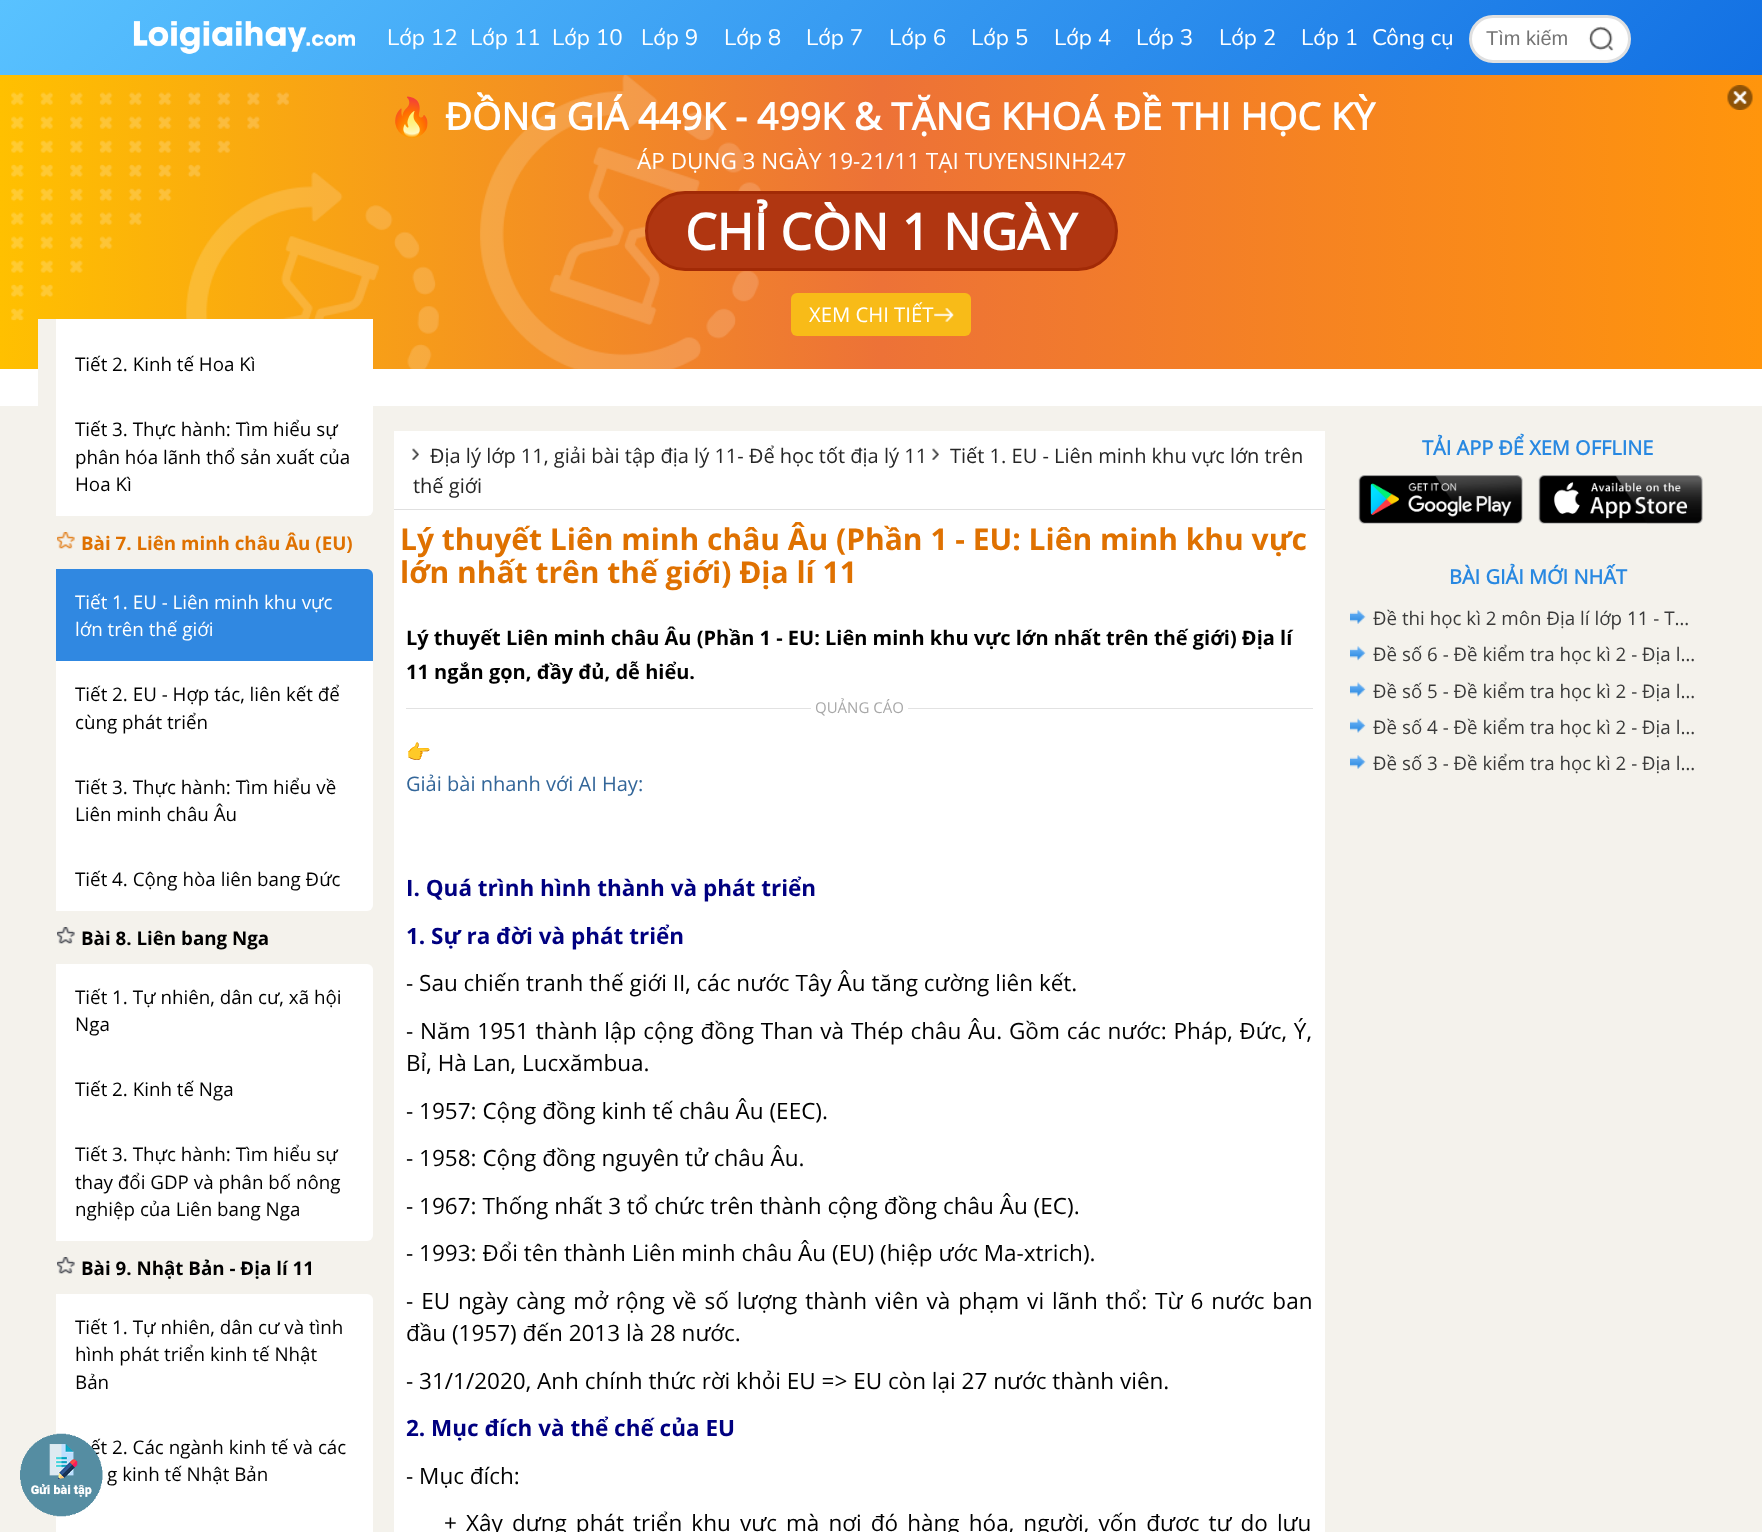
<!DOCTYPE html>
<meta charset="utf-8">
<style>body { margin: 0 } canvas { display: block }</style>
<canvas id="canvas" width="1762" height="1532"></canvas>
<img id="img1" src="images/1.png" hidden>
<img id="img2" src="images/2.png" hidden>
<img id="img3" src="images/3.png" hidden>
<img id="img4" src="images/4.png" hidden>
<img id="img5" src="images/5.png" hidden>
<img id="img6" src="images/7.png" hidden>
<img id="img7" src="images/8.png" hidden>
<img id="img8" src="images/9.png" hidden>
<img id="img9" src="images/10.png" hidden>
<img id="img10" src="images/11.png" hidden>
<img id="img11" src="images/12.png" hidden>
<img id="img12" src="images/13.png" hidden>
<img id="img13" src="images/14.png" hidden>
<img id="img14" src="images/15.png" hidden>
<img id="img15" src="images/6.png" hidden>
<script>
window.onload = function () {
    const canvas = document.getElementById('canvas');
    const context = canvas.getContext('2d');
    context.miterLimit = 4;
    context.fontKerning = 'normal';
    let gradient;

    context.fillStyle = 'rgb(255, 255, 255)';
    context.fillRect(0, 0, 1762, 1532);
    gradient = context.createLinearGradient(1341, 497, 422, -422);
    gradient.addColorStop(0, 'rgb(18, 112, 227)');
    gradient.addColorStop(1, 'rgb(89, 194, 255)');
    context.fillStyle = gradient;
    context.fillRect(0, 0, 1762, 75);
    context.drawImage(document.getElementById('img1'), 133, 21, 222, 33);
    context.fillStyle = 'rgb(255, 255, 255)';
    context.beginPath();
    context.roundRect(1470.5, 16.5, 159, 45, 22.5);
    context.fill();
    context.strokeStyle = 'rgb(224, 224, 224)';
    context.lineWidth = 3;
    context.stroke();
    context.drawImage(document.getElementById('img2'), 1588, 26, 26, 25);
    gradient = context.createLinearGradient(0, 222, 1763, 222);
    gradient.addColorStop(0, 'rgb(255, 192, 0)');
    gradient.addColorStop(0.5, 'rgb(237, 114, 55)');
    gradient.addColorStop(1, 'rgb(255, 149, 12)');
    context.fillStyle = gradient;
    context.fillRect(0, 75, 1762, 294);
    context.drawImage(document.getElementById('img3'), 11, 75, 750, 294);
    context.fillStyle = 'rgb(176, 54, 17)';
    context.beginPath();
    context.roundRect(646.5, 192.5, 470, 77, 38.5);
    context.fill();
    context.strokeStyle = 'rgb(162, 42, 6)';
    context.stroke();
    context.fillStyle = 'rgb(248, 187, 24)';
    context.beginPath();
    context.roundRect(791, 293, 180, 43, 6);
    context.fill();
    context.drawImage(document.getElementById('img4'), 934, 308, 20, 14);
    context.drawImage(document.getElementById('img5'), 1727, 85, 26, 25);
    context.fillStyle = 'rgb(244, 242, 236)';
    context.fillRect(0, 406, 1762, 1126);
    context.fillRect(38, 319, 335, 87);
    context.fillStyle = 'rgb(255, 255, 255)';
    context.fillRect(56, 319, 317, 77);
    context.beginPath();
    context.roundRect(56, 396, 317, 120, [0, 0, 6, 0]);
    context.fill();
    context.drawImage(document.getElementById('img6'), 57, 532, 18, 17);
    context.fillStyle = 'rgb(48, 136, 225)';
    context.beginPath();
    context.roundRect(56, 569, 317, 92, [0, 6, 0, 0]);
    context.fill();
    context.fillStyle = 'rgb(255, 255, 255)';
    context.fillRect(56, 661, 317, 185);
    context.beginPath();
    context.roundRect(56, 846, 317, 65, [0, 0, 6, 0]);
    context.fill();
    context.drawImage(document.getElementById('img7'), 57, 927, 18, 17);
    context.beginPath();
    context.roundRect(56, 964, 317, 92, [0, 6, 0, 0]);
    context.fill();
    context.fillRect(56, 1056, 317, 65);
    context.beginPath();
    context.roundRect(56, 1121, 317, 120, [0, 0, 6, 0]);
    context.fill();
    context.drawImage(document.getElementById('img7'), 57, 1257, 18, 17);
    context.beginPath();
    context.roundRect(56, 1294, 317, 120, [0, 6, 0, 0]);
    context.fill();
    context.fillRect(56, 1414, 317, 118);
    context.fillRect(394, 431, 931, 1101);
    context.fillStyle = 'rgb(224, 224, 224)';
    context.fillRect(394, 509, 931, 1);
    context.drawImage(document.getElementById('img8'), 412, 448, 7, 12);
    context.drawImage(document.getElementById('img8'), 932, 448, 7, 12);
    context.fillStyle = 'rgb(226, 226, 226)';
    context.fillRect(406, 708, 907, 1);
    context.fillStyle = 'rgb(255, 255, 255)';
    context.fillRect(811, 708, 97, 1);
    context.drawImage(document.getElementById('img9'), 1358, 475, 165, 49);
    context.drawImage(document.getElementById('img10'), 1538, 475, 165, 49);
    context.drawImage(document.getElementById('img11'), 1350, 610, 16, 14);
    context.drawImage(document.getElementById('img12'), 1350, 646, 16, 15);
    context.drawImage(document.getElementById('img13'), 1350, 682, 16, 15);
    context.drawImage(document.getElementById('img14'), 1350, 718, 16, 15);
    context.drawImage(document.getElementById('img11'), 1350, 755, 16, 14);
    context.font = '22.5px Nunito';
    context.fillText('Lớp 12', 387, 45);
    context.fillText('Lớp 11', 470, 45);
    context.fillText('Lớp 10', 552, 45);
    context.fillText('Lớp 9', 641, 45);
    context.fillText('Lớp 8', 724, 45);
    context.fillText('Lớp 7', 806, 45);
    context.fillText('Lớp 6', 889, 45);
    context.fillText('Lớp 5', 971, 45);
    context.fillText('Lớp 4', 1054, 45);
    context.fillText('Lớp 3', 1136, 45);
    context.fillText('Lớp 2', 1219, 45);
    context.fillText('Lớp 1', 1301, 45);
    context.fillText('Công cụ', 1372, 45);
    context.font = '20px Liberation Sans';
    context.fillStyle = 'rgb(117, 117, 117)';
    context.fillText('Tìm kiếm', 1486, 45);
    context.font = 'bold 37.5px Noto Color Emoji';
    context.fillStyle = 'rgb(255, 255, 255)';
    context.fillText('🔥', 388, 130);
    context.font = 'bold 37.5px "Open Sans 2"';
    context.fillText('ĐỒNG GIÁ 449K - 499K & TẶNG KHOÁ ĐỀ THI HỌC KỲ', 445, 130);
    context.font = '22.5px Open Sans';
    context.fillText('ÁP DỤNG 3 NGÀY 19-21/11 TẠI TUYENSINH247', 637, 169);
    context.font = 'bold 50px "Open Sans 2"';
    context.fillText('CHỈ CÒN 1 NGÀY', 685, 250);
    context.font = '20.25px Open Sans';
    context.fillText('XEM CHI TIẾT', 809, 322);
    context.font = '18.75px Open Sans';
    context.fillStyle = 'rgb(0, 0, 0)';
    context.fillText('Tiết 2. Kinh tế Hoa Kì', 75, 371);
    context.fillText('Tiết 3. Thực hành: Tìm hiểu sự', 75, 436);
    context.fillText('phân hóa lãnh thổ sản xuất của', 75, 464);
    context.fillText('Hoa Kì', 75, 491);
    context.font = 'bold 18.75px Open Sans';
    context.fillStyle = 'rgb(223, 113, 0)';
    context.fillText('Bài 7. Liên minh châu Âu (EU)', 81, 550);
    context.font = '18.75px Open Sans';
    context.fillStyle = 'rgb(255, 255, 255)';
    context.fillText('Tiết 1. EU - Liên minh khu vực', 75, 609);
    context.fillText('lớn trên thế giới', 75, 636);
    context.fillStyle = 'rgb(0, 0, 0)';
    context.fillText('Tiết 2. EU - Hợp tác, liên kết để', 75, 701);
    context.fillText('cùng phát triển', 75, 729);
    context.fillText('Tiết 3. Thực hành: Tìm hiểu về', 75, 794);
    context.fillText('Liên minh châu Âu', 75, 821);
    context.fillText('Tiết 4. Cộng hòa liên bang Đức', 75, 886);
    context.font = 'bold 18.75px Open Sans';
    context.fillText('Bài 8. Liên bang Nga', 81, 945);
    context.font = '18.75px Open Sans';
    context.fillText('Tiết 1. Tự nhiên, dân cư, xã hội', 75, 1004);
    context.fillText('Nga', 75, 1031);
    context.fillText('Tiết 2. Kinh tế Nga', 75, 1096);
    context.fillText('Tiết 3. Thực hành: Tìm hiểu sự', 75, 1161);
    context.fillText('thay đổi GDP và phân bố nông', 75, 1189);
    context.fillText('nghiệp của Liên bang Nga', 75, 1216);
    context.font = 'bold 18.75px Open Sans';
    context.fillText('Bài 9. Nhật Bản - Địa lí 11', 81, 1275);
    context.font = '18.75px Open Sans';
    context.fillText('Tiết 1. Tự nhiên, dân cư và tình', 75, 1334);
    context.fillText('hình phát triển kinh tế Nhật', 75, 1361);
    context.fillText('Bản', 75, 1389);
    context.fillText('ết 2. Các ngành kinh tế và các', 90, 1454);
    context.drawImage(document.getElementById('img15'), 20, 1433, 83, 84);
    context.fillText('g kinh tế Nhật Bản', 107, 1481);
    context.font = '20px Open Sans';
    context.fillStyle = 'rgb(38, 38, 38)';
    context.fillText('Địa lý lớp 11, giải bài tập địa lý 11- Để học tốt địa lý 11', 430, 463);
    context.fillText('Tiết 1. EU - Liên minh khu vực lớn trên', 950, 463);
    context.fillText('thế giới', 413, 493);
    context.font = 'bold 30px Open Sans';
    context.fillStyle = 'rgb(223, 113, 0)';
    context.fillText('Lý thuyết Liên minh châu Âu (Phần 1 - EU: Liên minh khu vực', 400, 550);
    context.fillText('lớn nhất trên thế giới) Địa lí 11', 400, 583);
    context.font = 'bold 20px Open Sans';
    context.fillStyle = 'rgb(0, 0, 0)';
    context.fillText('Lý thuyết Liên minh châu Âu (Phần 1 - EU: Liên minh khu vực lớn nhất trên thế giới) Địa lí', 406, 645);
    context.fillText('11 ngắn gọn, đầy đủ, dễ hiểu.', 406, 679);
    context.font = '15px Open Sans';
    context.fillStyle = 'rgb(167, 167, 167)';
    context.fillText('QUẢNG CÁO', 815, 713);
    context.font = '20px Noto Color Emoji';
    context.fillStyle = 'rgb(51, 102, 153)';
    context.fillText('👉', 406, 759);
    context.font = '20px Open Sans';
    context.fillText('Giải bài nhanh với AI Hay:', 406, 791);
    context.font = 'bold 22.5px Open Sans';
    context.fillStyle = 'rgb(0, 0, 128)';
    context.fillText('I. Quá trình hình thành và phát triển', 406, 896);
    context.fillText('1. Sự ra đời và phát triển', 406, 944);
    context.font = '22.5px Open Sans';
    context.fillStyle = 'rgb(0, 0, 0)';
    context.fillText('- Sau chiến tranh thế giới II, các nước Tây Âu tăng cường liên kết.', 406, 991);
    context.wordSpacing = '1px';
    context.fillText('- Năm 1951 thành lập cộng đồng Than và Thép châu Âu. Gồm các nước: Pháp, Đức, Ý,', 406, 1039);
    context.wordSpacing = '0px';
    context.fillText('Bỉ, Hà Lan, Lucxămbua.', 406, 1071);
    context.fillText('- 1957: Cộng đồng kinh tế châu Âu (EEC).', 406, 1119);
    context.fillText('- 1958: Cộng đồng nguyên tử châu Âu.', 406, 1166);
    context.fillText('- 1967: Thống nhất 3 tổ chức trên thành cộng đồng châu Âu (EC).', 406, 1214);
    context.fillText('- 1993: Đổi tên thành Liên minh châu Âu (EU) (hiệp ước Ma-xtrich).', 406, 1261);
    context.wordSpacing = '2.1px';
    context.fillText('- EU ngày càng mở rộng về số lượng thành viên và phạm vi lãnh thổ: Từ 6 nước ban', 406, 1309);
    context.wordSpacing = '0px';
    context.fillText('đầu (1957) đến 2013 là 28 nước.', 406, 1341);
    context.fillText('- 31/1/2020, Anh chính thức rời khỏi EU => EU còn lại 27 nước thành viên.', 406, 1389);
    context.font = 'bold 22.5px Open Sans';
    context.fillStyle = 'rgb(0, 0, 128)';
    context.fillText('2. Mục đích và thể chế của EU', 406, 1436);
    context.font = '22.5px Open Sans';
    context.fillStyle = 'rgb(0, 0, 0)';
    context.fillText('- Mục đích:', 406, 1484);
    context.wordSpacing = '3.25px';
    context.fillText('+ Xây dựng phát triển khu vực mà nơi đó hàng hóa, người, vốn được tự do lưu', 444, 1531);
    context.wordSpacing = '0px';
    context.font = 'bold 20px "Open Sans 2"';
    context.fillStyle = 'rgb(40, 136, 225)';
    context.fillText('TẢI APP ĐỂ XEM OFFLINE', 1422, 455);
    context.fillText('BÀI GIẢI MỚI NHẤT', 1449, 584);
    context.font = '18.75px Open Sans';
    context.fillStyle = 'rgb(58, 58, 58)';
    context.fillText('Đề thi học kì 2 môn Địa lí lớp 11 - T…', 1373, 625);
    context.fillText('Đề số 6 - Đề kiểm tra học kì 2 - Địa l…', 1373, 661);
    context.fillText('Đề số 5 - Đề kiểm tra học kì 2 - Địa l…', 1373, 698);
    context.fillText('Đề số 4 - Đề kiểm tra học kì 2 - Địa l…', 1373, 734);
    context.fillText('Đề số 3 - Đề kiểm tra học kì 2 - Địa l…', 1373, 770);
};
</script>
